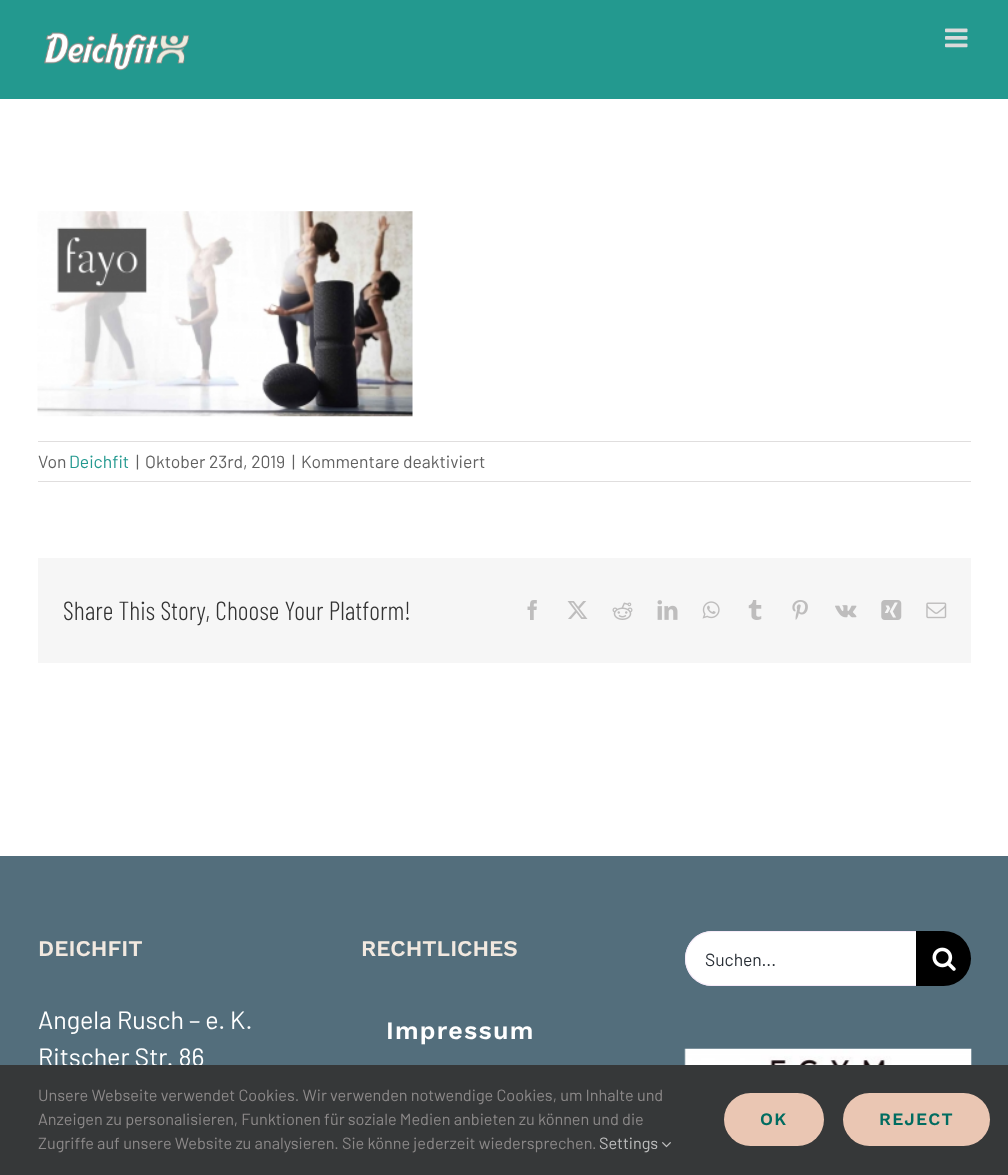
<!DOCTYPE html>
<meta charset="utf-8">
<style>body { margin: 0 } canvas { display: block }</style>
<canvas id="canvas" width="1008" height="1175"></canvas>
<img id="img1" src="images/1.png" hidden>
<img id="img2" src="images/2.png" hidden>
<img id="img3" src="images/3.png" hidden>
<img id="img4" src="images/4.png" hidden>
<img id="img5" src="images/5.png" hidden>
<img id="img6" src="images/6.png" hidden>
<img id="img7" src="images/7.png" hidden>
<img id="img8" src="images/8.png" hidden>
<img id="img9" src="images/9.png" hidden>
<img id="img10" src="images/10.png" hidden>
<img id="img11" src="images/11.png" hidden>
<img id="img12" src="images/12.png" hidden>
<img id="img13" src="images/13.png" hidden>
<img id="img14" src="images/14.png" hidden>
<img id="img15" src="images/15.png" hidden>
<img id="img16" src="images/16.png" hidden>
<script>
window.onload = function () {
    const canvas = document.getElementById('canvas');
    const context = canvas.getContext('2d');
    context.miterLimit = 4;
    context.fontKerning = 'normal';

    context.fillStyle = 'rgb(255, 255, 255)';
    context.fillRect(0, 0, 1008, 1175);
    context.fillStyle = 'rgb(35, 153, 143)';
    context.fillRect(0, 0, 1008, 99);
    context.drawImage(document.getElementById('img1'), 44, 32, 146, 39);
    context.drawImage(document.getElementById('img2'), 945, 28, 23, 20);
    context.drawImage(document.getElementById('img3'), 37, 211, 376, 206);
    context.fillStyle = 'rgb(224, 222, 222)';
    context.fillRect(38, 441, 933, 1);
    context.fillRect(38, 481, 933, 1);
    context.fillStyle = 'rgb(246, 246, 246)';
    context.fillRect(38, 558, 933, 105);
    context.drawImage(document.getElementById('img4'), 527, 600, 10, 20);
    context.drawImage(document.getElementById('img5'), 567, 601, 21, 18);
    context.drawImage(document.getElementById('img6'), 612, 602, 21, 18);
    context.drawImage(document.getElementById('img7'), 657, 600, 21, 20);
    context.drawImage(document.getElementById('img8'), 702, 601, 18, 18);
    context.drawImage(document.getElementById('img9'), 748, 600, 14, 20);
    context.drawImage(document.getElementById('img10'), 792, 600, 16, 20);
    context.drawImage(document.getElementById('img11'), 835, 605, 22, 13);
    context.drawImage(document.getElementById('img12'), 881, 600, 21, 20);
    context.drawImage(document.getElementById('img13'), 926, 602, 21, 17);
    context.fillStyle = 'rgb(83, 110, 124)';
    context.fillRect(0, 856, 1008, 209);
    context.fillStyle = 'rgb(255, 255, 255)';
    context.beginPath();
    context.roundRect(685, 931, 231, 55, [27.5, 0, 0, 27.5]);
    context.fill();
    context.fillStyle = 'rgb(247, 235, 249)';
    context.beginPath();
    context.moveTo(712, 932);
    context.bezierCurveTo(698, 932, 686, 944, 686, 959);
    context.bezierCurveTo(686, 973, 698, 985, 712, 985);
    context.lineTo(916, 985);
    context.lineTo(916, 986);
    context.lineTo(712, 986);
    context.bezierCurveTo(697, 986, 685, 974, 685, 959);
    context.bezierCurveTo(685, 949, 690, 940, 698, 935);
    context.bezierCurveTo(703, 932, 707, 931, 712, 931);
    context.lineTo(916, 931);
    context.lineTo(916, 932);
    context.closePath();
    context.fill();
    context.fillStyle = 'rgb(0, 0, 0)';
    context.beginPath();
    context.roundRect(916, 931, 55, 55, [0, 27.5, 27.5, 0]);
    context.fill();
    context.drawImage(document.getElementById('img14'), 932, 947, 24, 24);
    context.drawImage(document.getElementById('img15'), 684, 1048, 288, 17);
    context.font = '17.5px Barlow';
    context.fillStyle = 'rgb(97, 97, 97)';
    context.fillText('Von', 38, 468);
    context.fillStyle = 'rgb(35, 153, 143)';
    context.fillText('Deichfit', 69, 468);
    context.fillStyle = 'rgb(97, 97, 97)';
    context.fillText('|', 136, 468);
    context.fillText('Oktober 23rd, 2019', 145, 468);
    context.fillText('|', 292, 468);
    context.fillText('Kommentare deaktiviert', 301, 468);
    context.font = '300 26.25px Barlow Condensed';
    context.fillStyle = 'rgb(51, 51, 51)';
    context.fillText('Share This Story, Choose Your Platform!', 63, 620);
    context.font = '600 22.5px Work Sans';
    context.fillStyle = 'rgb(242, 233, 224)';
    context.fillText('DEICHFIT', 38, 956);
    context.font = '25px Barlow';
    context.fillStyle = 'rgb(255, 255, 255)';
    context.fillText('Angela Rusch – e. K.', 38, 1029);
    context.fillText('Ritscher Str. 86', 38, 1066);
    context.font = '600 22.5px Work Sans';
    context.fillStyle = 'rgb(242, 233, 224)';
    context.fillText('RECHTLICHES', 361, 956);
    context.letterSpacing = '1.25px';
    context.font = '600 25px Work Sans';
    context.fillStyle = 'rgb(255, 255, 255)';
    context.fillText('Impressum', 386, 1039);
    context.letterSpacing = '0px';
    context.font = '17.5px Barlow';
    context.fillStyle = 'rgb(41, 47, 54)';
    context.fillText('Suchen...', 705, 966);
    context.fillStyle = 'rgb(54, 56, 57)';
    context.fillRect(0, 1065, 1008, 110);
    context.font = '16.25px Barlow';
    context.fillStyle = 'rgb(140, 137, 137)';
    context.fillText('Unsere Webseite verwendet Cookies. Wir verwenden notwendige Cookies, um Inhalte und', 38, 1101);
    context.fillText('Anzeigen zu personalisieren, Funktionen für soziale Medien anbieten zu können und die', 38, 1125);
    context.fillText('Zugriffe auf unsere Website zu analysieren. Sie könne jederzeit wiedersprechen.', 38, 1149);
    context.fillStyle = 'rgb(191, 191, 191)';
    context.fillText('Settings', 599, 1149);
    context.drawImage(document.getElementById('img16'), 662, 1142, 9, 6);
    context.fillStyle = 'rgb(234, 198, 179)';
    context.beginPath();
    context.roundRect(724, 1093, 100, 53, 26.5);
    context.fill();
    context.letterSpacing = '1.25px';
    context.font = '600 17.5px Work Sans';
    context.fillStyle = 'rgb(0, 108, 96)';
    context.fillText('OK', 760, 1125);
    context.fillStyle = 'rgb(234, 198, 179)';
    context.beginPath();
    context.roundRect(843, 1093, 147, 53, 26.5);
    context.fill();
    context.fillStyle = 'rgb(0, 108, 96)';
    context.fillText('REJECT', 879, 1125);
};
</script>
